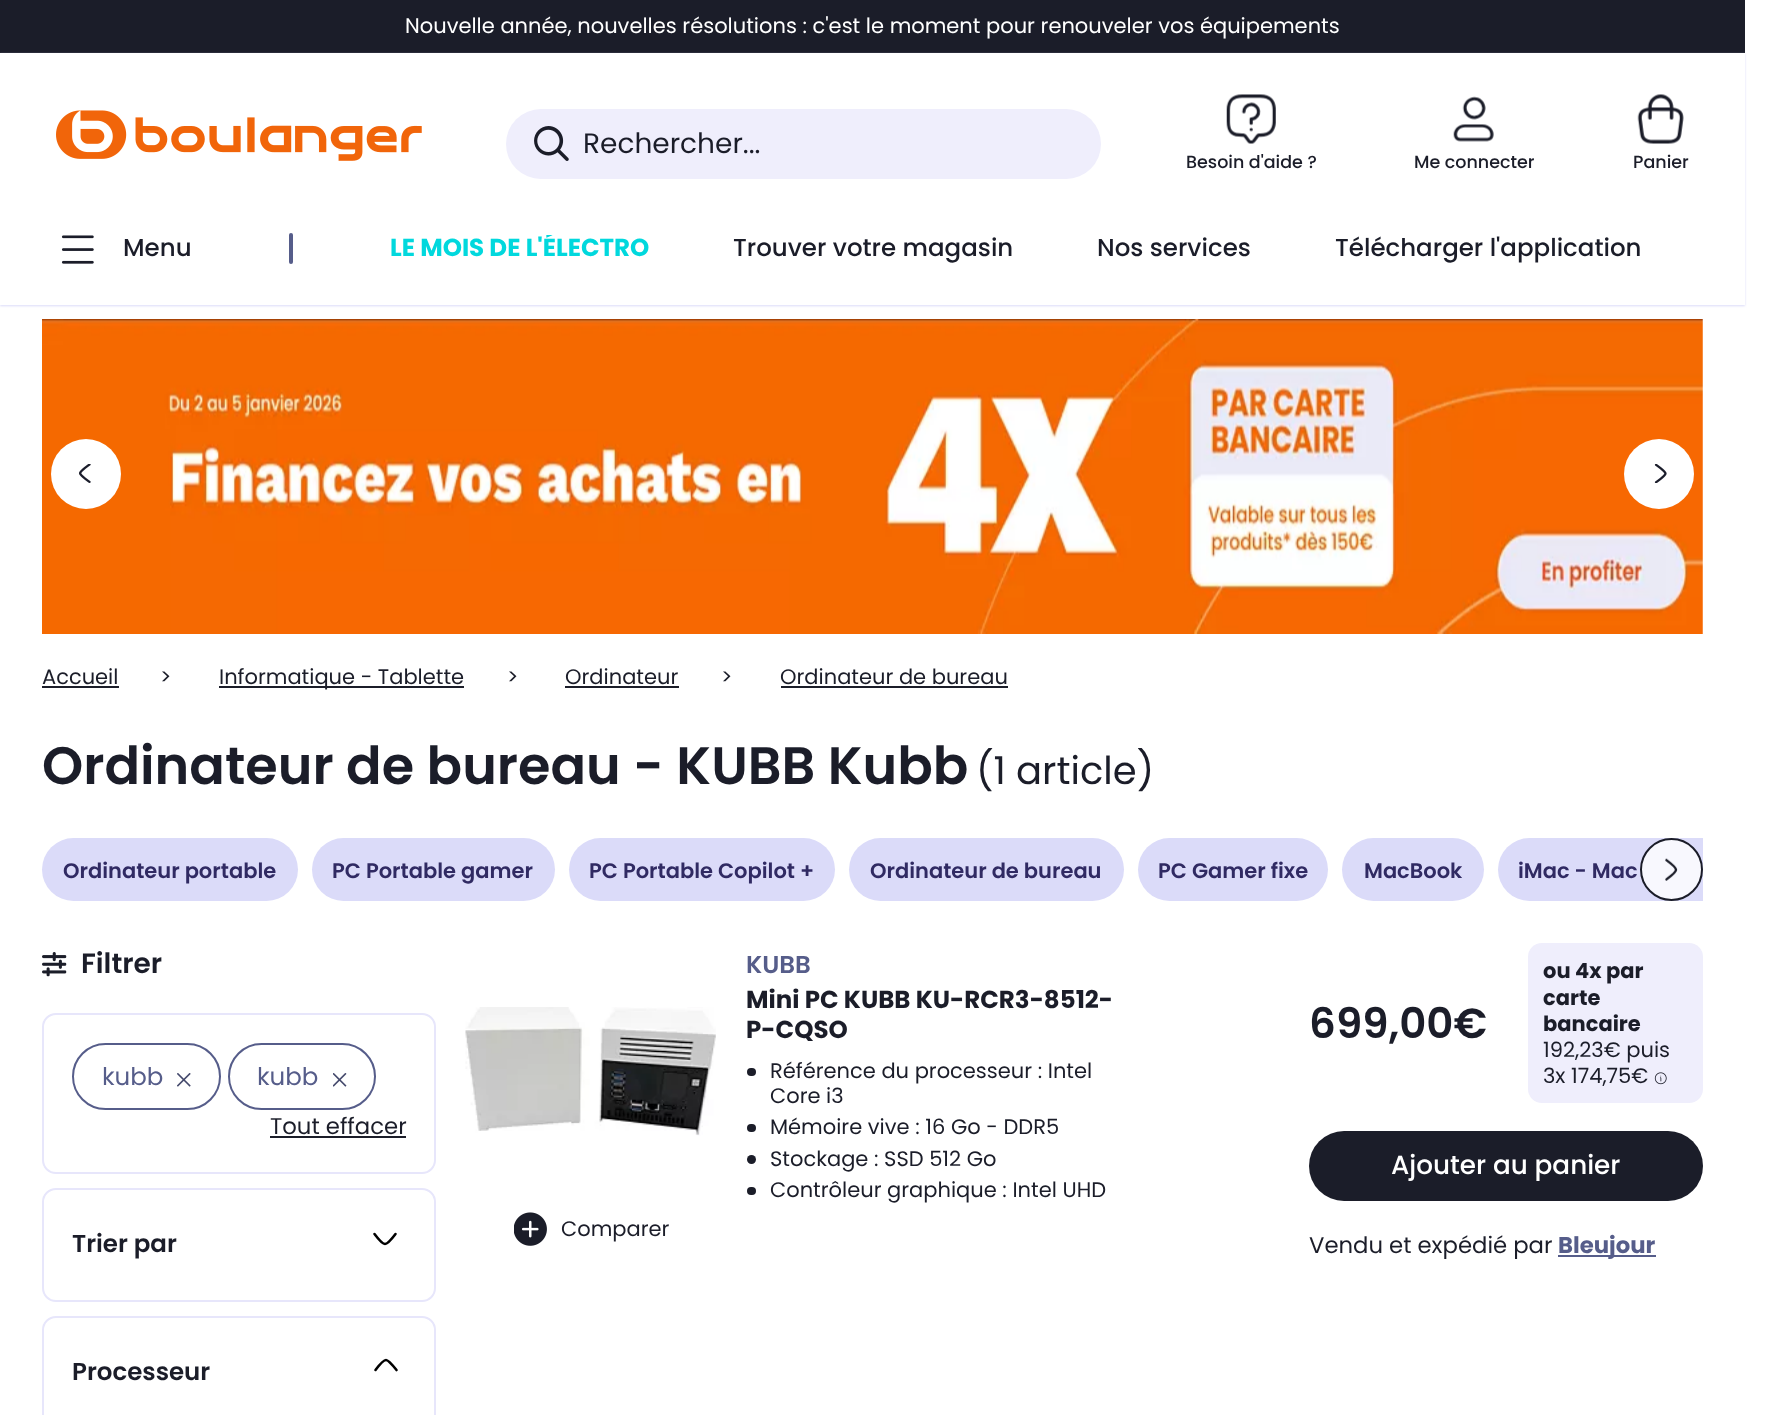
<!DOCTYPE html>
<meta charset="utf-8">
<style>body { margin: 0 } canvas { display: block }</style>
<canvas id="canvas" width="1776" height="1415"></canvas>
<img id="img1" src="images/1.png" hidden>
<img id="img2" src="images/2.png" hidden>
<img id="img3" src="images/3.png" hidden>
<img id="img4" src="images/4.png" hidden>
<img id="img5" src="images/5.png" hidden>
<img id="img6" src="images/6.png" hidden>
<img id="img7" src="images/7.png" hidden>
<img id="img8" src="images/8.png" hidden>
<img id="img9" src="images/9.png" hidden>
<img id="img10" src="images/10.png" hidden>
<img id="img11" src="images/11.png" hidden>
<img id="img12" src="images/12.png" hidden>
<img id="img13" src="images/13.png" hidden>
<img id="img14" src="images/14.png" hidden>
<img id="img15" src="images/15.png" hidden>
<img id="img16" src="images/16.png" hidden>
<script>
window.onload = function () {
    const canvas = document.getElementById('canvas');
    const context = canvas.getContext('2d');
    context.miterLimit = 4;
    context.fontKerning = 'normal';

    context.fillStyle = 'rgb(255, 255, 255)';
    context.fillRect(0, 0, 1776, 1415);
    context.fillStyle = 'rgb(27, 29, 41)';
    context.fillRect(0, 0, 1745, 53);
    context.fillStyle = 'rgb(219, 219, 249)';
    context.filter = 'blur(1px)';
    context.beginPath();
    context.rect(0, 54, 1745, 252);
    context.fill();
    context.filter = 'none';
    context.fillStyle = 'rgb(255, 255, 255)';
    context.fillRect(0, 53, 1745, 252);
    context.drawImage(document.getElementById('img1'), 56, 110, 366, 51);
    context.fillStyle = 'rgb(239, 238, 252)';
    context.beginPath();
    context.roundRect(506, 109, 77, 70, [35, 0, 0, 35]);
    context.fill();
    context.drawImage(document.getElementById('img2'), 534, 126, 35, 35);
    context.beginPath();
    context.roundRect(583, 109, 518, 70, [0, 35, 35, 0]);
    context.fill();
    context.drawImage(document.getElementById('img3'), 1226, 94, 50, 50);
    context.drawImage(document.getElementById('img4'), 1453, 96, 41, 46);
    context.drawImage(document.getElementById('img5'), 1637, 94, 47, 50);
    context.drawImage(document.getElementById('img6'), 61, 235, 33, 29);
    context.fillStyle = 'rgb(86, 93, 138)';
    context.beginPath();
    context.roundRect(289, 233, 4, 31, 2);
    context.fill();
    context.drawImage(document.getElementById('img7'), 42, 319, 1661, 315);
    context.fillStyle = 'rgb(255, 255, 255)';
    context.beginPath();
    context.arc(86, 474, 35, 0, 2 * Math.PI);
    context.fill();
    context.drawImage(document.getElementById('img8'), 79, 464, 12, 19);
    context.beginPath();
    context.arc(1659, 474, 35, 0, 2 * Math.PI);
    context.fill();
    context.drawImage(document.getElementById('img9'), 1654, 464, 13, 19);
    context.fillStyle = 'rgb(27, 29, 41)';
    context.fillRect(42, 686, 77, 2);
    context.fillRect(219, 686, 245, 2);
    context.fillRect(565, 686, 114, 2);
    context.fillRect(781, 686, 227, 2);
    context.fillStyle = 'rgb(219, 219, 249)';
    context.beginPath();
    context.roundRect(42, 838, 256, 63, 31.5);
    context.fill();
    context.beginPath();
    context.roundRect(312, 838, 243, 63, 31.5);
    context.fill();
    context.beginPath();
    context.roundRect(569, 838, 266, 63, 31.5);
    context.fill();
    context.beginPath();
    context.roundRect(849, 838, 275, 63, 31.5);
    context.fill();
    context.beginPath();
    context.roundRect(1138, 838, 190, 63, 31.5);
    context.fill();
    context.beginPath();
    context.roundRect(1342, 838, 142, 63, 31.5);
    context.fill();
    context.beginPath();
    context.roundRect(1498, 838, 205, 63, [31.5, 0, 0, 31.5]);
    context.fill();
    context.fillStyle = 'rgba(255, 255, 255, 0.8)';
    context.beginPath();
    context.arc(1671.5, 869.5, 30.5, 0, 2 * Math.PI);
    context.fill();
    context.strokeStyle = 'rgb(27, 29, 41)';
    context.lineWidth = 2;
    context.stroke();
    context.drawImage(document.getElementById('img10'), 1665, 858, 13, 23);
    context.drawImage(document.getElementById('img11'), 42, 952, 25, 25);
    context.beginPath();
    context.roundRect(43, 1014, 392, 159, 13);
    context.strokeStyle = 'rgb(231, 230, 251)';
    context.stroke();
    context.beginPath();
    context.roundRect(73, 1044, 147, 65, 32.5);
    context.strokeStyle = 'rgb(86, 93, 138)';
    context.stroke();
    context.drawImage(document.getElementById('img12'), 177, 1073, 14, 14);
    context.beginPath();
    context.roundRect(229, 1044, 146, 65, 32.5);
    context.stroke();
    context.drawImage(document.getElementById('img13'), 333, 1073, 14, 14);
    context.fillStyle = 'rgb(27, 29, 41)';
    context.fillRect(270, 1136, 136, 2);
    context.beginPath();
    context.roundRect(43, 1189, 392, 112, 13);
    context.strokeStyle = 'rgb(231, 230, 251)';
    context.stroke();
    context.beginPath();
    context.moveTo(374.5, 1234);
    context.bezierCurveTo(374.5, 1234, 382, 1244, 385, 1244);
    context.bezierCurveTo(388, 1244, 395.5, 1234, 395.5, 1234);
    context.strokeStyle = 'rgb(0, 0, 0)';
    context.lineWidth = 2.6;
    context.lineCap = 'round';
    context.lineJoin = 'round';
    context.stroke();
    context.beginPath();
    context.roundRect(43, 1317, 392, 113, 13);
    context.strokeStyle = 'rgb(231, 230, 251)';
    context.lineWidth = 2;
    context.lineJoin = 'miter';
    context.stroke();
    context.beginPath();
    context.moveTo(396.5, 1370);
    context.bezierCurveTo(396.5, 1370, 388.5, 1360, 386, 1360);
    context.bezierCurveTo(383, 1360, 375.5, 1370, 375.5, 1370);
    context.strokeStyle = 'rgb(0, 0, 0)';
    context.lineWidth = 2.6;
    context.lineJoin = 'round';
    context.stroke();
    context.beginPath();
    context.roundRect(747, 1068, 9, 8, 4);
    context.fill();
    context.beginPath();
    context.roundRect(747, 1124, 9, 8, 4);
    context.fill();
    context.beginPath();
    context.arc(751.5, 1159.5, 4.5, 0, 2 * Math.PI);
    context.fill();
    context.beginPath();
    context.roundRect(747, 1187, 9, 8, 4);
    context.fill();
    context.fillStyle = 'rgb(239, 238, 252)';
    context.beginPath();
    context.roundRect(1528, 943, 175, 160, 14);
    context.fill();
    context.drawImage(document.getElementById('img14'), 1654, 1072, 13, 13);
    context.drawImage(document.getElementById('img15'), 465, 1007, 251, 129);
    context.drawImage(document.getElementById('img16'), 514, 1212, 33, 34);
    context.fillStyle = 'rgb(27, 29, 41)';
    context.beginPath();
    context.roundRect(1309, 1131, 394, 70, 35);
    context.fill();
    context.fillStyle = 'rgb(86, 93, 138)';
    context.fillRect(1558, 1255, 98, 2);
    context.font = '21px Poppins';
    context.fillStyle = 'rgb(255, 255, 255)';
    context.fillText('Nouvelle année, nouvelles résolutions : c\'est le moment pour renouveler vos équipements', 405, 33);
    context.font = '28px Poppins';
    context.fillStyle = 'rgb(27, 29, 41)';
    context.fillText('Rechercher...', 583, 153);
    context.font = '500 17.5px Poppins';
    context.fillText('Besoin d\'aide ?', 1186, 168);
    context.fillText('Me connecter', 1414, 168);
    context.fillText('Panier', 1633, 168);
    context.font = '500 24.5px Poppins';
    context.fillText('Menu', 123, 256);
    context.save();
    context.beginPath();
    context.rect(390, 235, 259, 29);
    context.clip();
    context.font = 'bold 24.5px Poppins';
    context.fillStyle = 'rgb(1, 216, 221)';
    context.fillText('LE MOIS DE L\'ÉLECTRO', 390, 256);
    context.restore();
    context.fillText('Trouver votre magasin', 733, 256);
    context.fillText('Nos services', 1097, 256);
    context.fillText('Télécharger l\'application', 1335, 256);
    context.font = '21px Poppins';
    context.fillText('Accueil', 42, 684);
    context.fillText('>', 160, 684);
    context.fillText('Informatique - Tablette', 219, 684);
    context.fillText('>', 507, 684);
    context.fillText('Ordinateur', 565, 684);
    context.fillText('>', 721, 684);
    context.fillText('Ordinateur de bureau', 780, 684);
    context.font = '600 52.5px Poppins';
    context.fillText('Ordinateur de bureau - KUBB Kubb', 42, 784);
    context.font = '38.5px Poppins';
    context.fillText('(1 article)', 976, 784);
    context.font = '600 21px Poppins';
    context.fillStyle = 'rgb(48, 42, 99)';
    context.fillText('Ordinateur portable', 63, 878);
    context.fillText('PC Portable gamer', 332, 878);
    context.fillText('PC Portable Copilot +', 589, 878);
    context.fillText('Ordinateur de bureau', 870, 878);
    context.fillText('PC Gamer fixe', 1158, 878);
    context.fillText('MacBook', 1364, 878);
    context.fillText('iMac - Mac', 1518, 878);
    context.font = '600 28px Poppins';
    context.fillStyle = 'rgb(27, 29, 41)';
    context.fillText('Filtrer', 81, 973);
    context.font = '24.5px Poppins';
    context.fillStyle = 'rgb(86, 93, 138)';
    context.fillText('kubb', 102, 1085);
    context.fillText('kubb', 257, 1085);
    context.font = '22.75px Poppins';
    context.fillStyle = 'rgb(27, 29, 41)';
    context.fillText('Tout effacer', 270, 1134);
    context.font = '600 24.5px Poppins';
    context.fillText('Trier par', 72, 1252);
    context.fillText('Processeur', 72, 1380);
    context.fillStyle = 'rgb(86, 93, 138)';
    context.fillText('KUBB', 746, 973);
    context.font = 'bold 24.5px Poppins';
    context.fillStyle = 'rgb(27, 29, 41)';
    context.fillText('Mini PC KUBB KU-RCR3-8512-', 746, 1008);
    context.fillText('P-CQSO', 746, 1038);
    context.font = '21px Poppins';
    context.fillText('Référence du processeur : Intel', 770, 1078);
    context.fillText('Core i3', 770, 1103);
    context.fillText('Mémoire vive : 16 Go - DDR5', 770, 1134);
    context.fillText('Stockage : SSD 512 Go', 770, 1166);
    context.fillText('Contrôleur graphique : Intel UHD', 770, 1197);
    context.font = '600 42px Poppins';
    context.fillText('699,00€', 1309, 1038);
    context.font = 'bold 21px Poppins';
    context.fillText('ou 4x par', 1543, 978);
    context.fillText('carte', 1543, 1005);
    context.fillText('bancaire', 1543, 1031);
    context.font = '21px Poppins';
    context.fillText('192,23€ puis', 1543, 1057);
    context.fillText('3x 174,75€', 1543, 1083);
    context.fillText('Comparer', 561, 1236);
    context.font = '500 26.25px Poppins';
    context.fillStyle = 'rgb(255, 255, 255)';
    context.fillText('Ajouter au panier', 1391, 1174);
    context.font = '22.75px Poppins';
    context.fillStyle = 'rgb(27, 29, 41)';
    context.fillText('Vendu et expédié par', 1309, 1253);
    context.font = 'bold 22.75px Poppins';
    context.fillStyle = 'rgb(86, 93, 138)';
    context.fillText('Bleujour', 1558, 1253);
};
</script>
